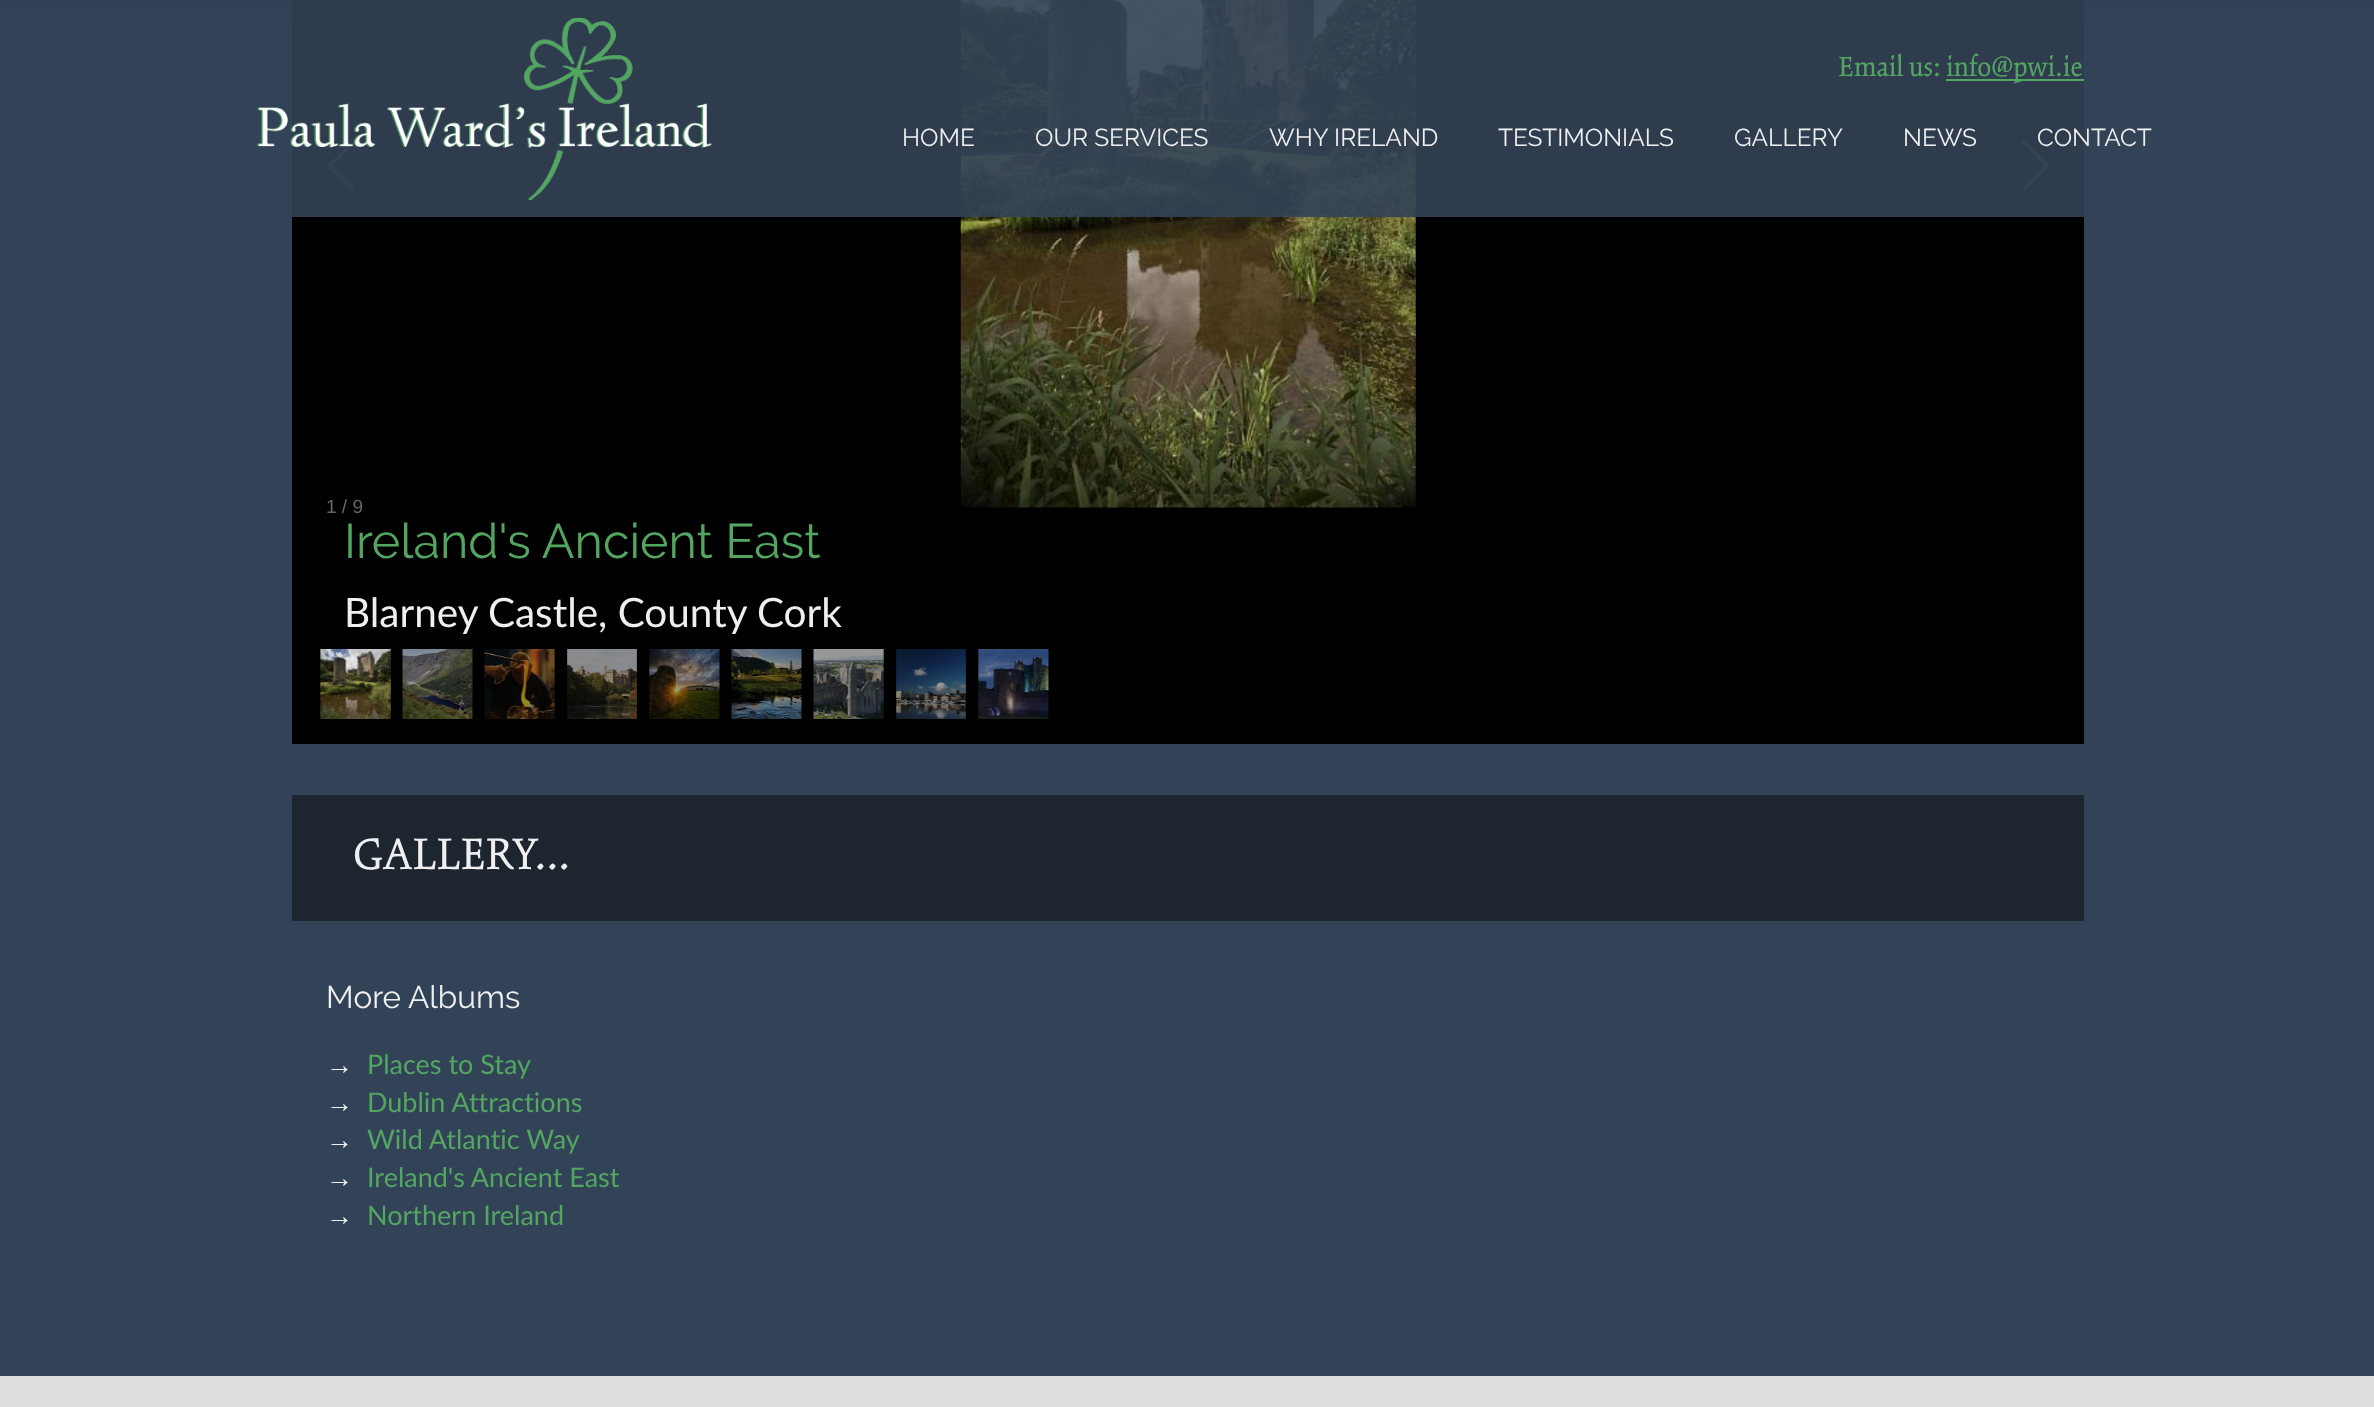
<!DOCTYPE html>
<meta charset="utf-8">
<style>body { margin: 0 } canvas { display: block }</style>
<canvas id="canvas" width="2374" height="1407"></canvas>
<img id="img1" src="images/2.png" hidden>
<img id="img2" src="images/3.png" hidden>
<img id="img3" src="images/4.png" hidden>
<img id="img4" src="images/1.png" hidden>
<img id="img5" src="images/5.png" hidden>
<img id="img6" src="images/6.png" hidden>
<img id="img7" src="images/7.png" hidden>
<img id="img8" src="images/8.png" hidden>
<img id="img9" src="images/9.png" hidden>
<img id="img10" src="images/10.png" hidden>
<img id="img11" src="images/11.png" hidden>
<img id="img12" src="images/12.png" hidden>
<img id="img13" src="images/13.png" hidden>
<script>
window.onload = function () {
    const canvas = document.getElementById('canvas');
    const context = canvas.getContext('2d');
    context.miterLimit = 4;
    context.fontKerning = 'normal';
    let gradient;

    context.fillStyle = 'rgb(255, 255, 255)';
    context.fillRect(0, 0, 2374, 1407);
    gradient = context.createLinearGradient(1187, -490, 1187, 1376);
    gradient.addColorStop(0, 'rgb(36, 46, 61)');
    gradient.addColorStop(0.28, 'rgb(51, 67, 87)');
    gradient.addColorStop(0.99, 'rgb(51, 67, 87)');
    context.fillStyle = gradient;
    context.fillRect(0, 0, 2374, 1376);
    context.fillStyle = 'rgb(0, 0, 0)';
    context.fillRect(292, 0, 1792, 744);
    context.drawImage(document.getElementById('img1'), 960, 0, 456, 508);
    context.drawImage(document.getElementById('img2'), 327, 139, 29, 52);
    context.drawImage(document.getElementById('img3'), 2020, 139, 30, 52);
    context.fillStyle = 'rgba(51, 67, 87, 0.9)';
    context.fillRect(292, 0, 1792, 217);
    context.drawImage(document.getElementById('img4'), 257, 18, 455, 182);
    context.fillStyle = 'rgb(83, 166, 98)';
    context.fillRect(1946, 79, 138, 2);
    context.drawImage(document.getElementById('img5'), 320, 649, 71, 70);
    context.drawImage(document.getElementById('img6'), 402, 649, 71, 70);
    context.drawImage(document.getElementById('img7'), 484, 649, 71, 70);
    context.drawImage(document.getElementById('img8'), 567, 649, 70, 70);
    context.drawImage(document.getElementById('img9'), 649, 649, 71, 70);
    context.drawImage(document.getElementById('img10'), 731, 649, 71, 70);
    context.drawImage(document.getElementById('img11'), 813, 649, 71, 70);
    context.drawImage(document.getElementById('img12'), 896, 649, 70, 70);
    context.drawImage(document.getElementById('img13'), 978, 649, 71, 70);
    context.fillStyle = 'rgb(29, 37, 47)';
    context.fillRect(292, 795, 1792, 126);
    context.fillStyle = 'rgb(220, 221, 221)';
    context.fillRect(0, 1376, 2374, 31);
    context.font = '30.5px "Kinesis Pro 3"';
    context.fillStyle = 'rgb(83, 166, 98)';
    context.fillText('Email us:', 1838, 76);
    context.fillText('info@pwi.ie', 1946, 76);
    context.font = '24.5px Raleway';
    context.fillStyle = 'rgb(239, 239, 239)';
    context.fillText('HOME', 902, 146);
    context.fillText('OUR SERVICES', 1035, 146);
    context.fillText('WHY IRELAND', 1269, 146);
    context.fillText('TESTIMONIALS', 1498, 146);
    context.fillText('GALLERY', 1734, 146);
    context.fillText('NEWS', 1903, 146);
    context.fillText('CONTACT', 2037, 146);
    context.font = '19px Liberation Sans';
    context.fillStyle = 'rgb(102, 102, 102)';
    context.fillText('1 / 9', 326, 513);
    context.font = '48.5px Raleway';
    context.fillStyle = 'rgb(83, 166, 98)';
    context.fillText('Ireland\'s Ancient East', 344, 558);
    context.font = '40.5px Lato';
    context.fillStyle = 'rgb(239, 239, 239)';
    context.fillText('Blarney Castle, County Cork', 344, 627);
    context.font = '48.5px "Kinesis Pro 3"';
    context.fillText('GALLERY...', 353, 869);
    context.font = '31.5px Raleway';
    context.fillText('More Albums', 326, 1008);
    context.font = '27px Liberation Sans';
    context.fillText('→', 326, 1074);
    context.font = '27px Lato';
    context.fillStyle = 'rgb(83, 166, 98)';
    context.fillText('Places to Stay', 367, 1074);
    context.font = '27px Liberation Sans';
    context.fillStyle = 'rgb(239, 239, 239)';
    context.fillText('→', 326, 1112);
    context.font = '27px Lato';
    context.fillStyle = 'rgb(83, 166, 98)';
    context.fillText('Dublin Attractions', 367, 1112);
    context.font = '27px Liberation Sans';
    context.fillStyle = 'rgb(239, 239, 239)';
    context.fillText('→', 326, 1149);
    context.font = '27px Lato';
    context.fillStyle = 'rgb(83, 166, 98)';
    context.fillText('Wild Atlantic Way', 367, 1149);
    context.font = '27px Liberation Sans';
    context.fillStyle = 'rgb(239, 239, 239)';
    context.fillText('→', 326, 1187);
    context.font = '27px Lato';
    context.fillStyle = 'rgb(83, 166, 98)';
    context.fillText('Ireland\'s Ancient East', 367, 1187);
    context.font = '27px Liberation Sans';
    context.fillStyle = 'rgb(239, 239, 239)';
    context.fillText('→', 326, 1225);
    context.font = '27px Lato';
    context.fillStyle = 'rgb(83, 166, 98)';
    context.fillText('Northern Ireland', 367, 1225);
};
</script>
